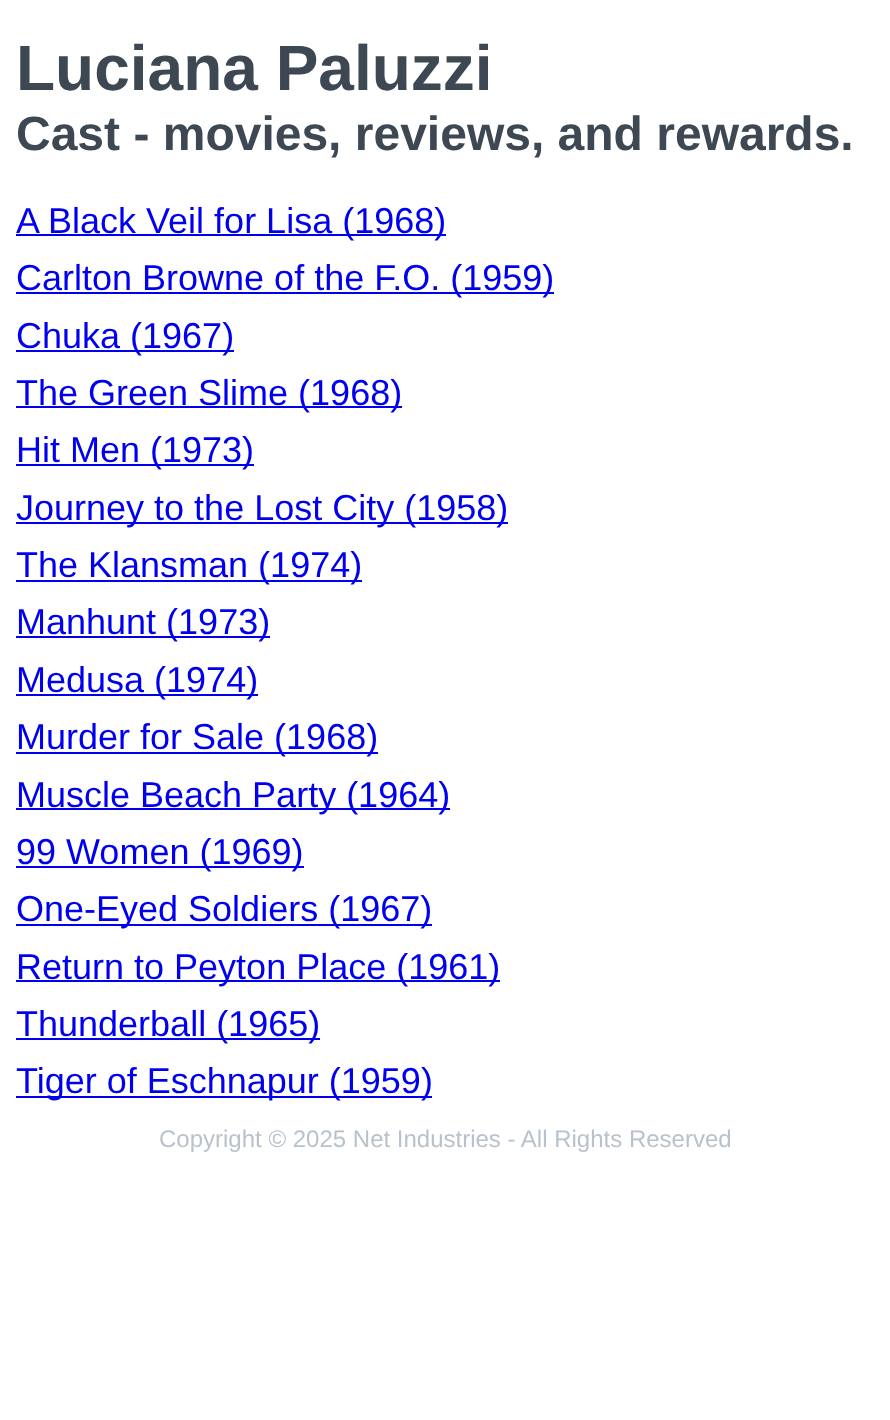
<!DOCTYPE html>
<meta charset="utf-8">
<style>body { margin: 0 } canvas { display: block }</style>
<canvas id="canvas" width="890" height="1420"></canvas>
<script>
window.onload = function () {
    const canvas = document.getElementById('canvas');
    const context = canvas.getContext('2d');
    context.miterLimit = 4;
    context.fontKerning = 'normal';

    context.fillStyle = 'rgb(255, 255, 255)';
    context.fillRect(0, 0, 890, 1420);
    context.fillStyle = 'rgb(0, 0, 238)';
    context.fillRect(16, 234, 430, 2);
    context.fillRect(16, 292, 538, 2);
    context.fillRect(16, 350, 218, 2);
    context.fillRect(16, 406, 386, 2);
    context.fillRect(16, 464, 238, 2);
    context.fillRect(16, 522, 492, 2);
    context.fillRect(16, 580, 346, 2);
    context.fillRect(16, 636, 254, 2);
    context.fillRect(16, 694, 242, 2);
    context.fillRect(16, 752, 362, 2);
    context.fillRect(16, 808, 434, 2);
    context.fillRect(16, 866, 288, 2);
    context.fillRect(16, 924, 416, 2);
    context.fillRect(16, 980, 484, 2);
    context.fillRect(16, 1038, 304, 2);
    context.fillRect(16, 1096, 416, 2);
    context.font = 'bold 64px Liberation Sans';
    context.fillStyle = 'rgb(61, 72, 82)';
    context.fillText('Luciana Paluzzi', 16, 90);
    context.font = 'bold 48px Liberation Sans';
    context.fillText('Cast - movies, reviews, and rewards.', 16, 150);
    context.font = '36px Liberation Sans';
    context.fillStyle = 'rgb(0, 0, 238)';
    context.fillText('A Black Veil for Lisa (1968)', 16, 233);
    context.fillText('Carlton Browne of the F.O. (1959)', 16, 290);
    context.fillText('Chuka (1967)', 16, 348);
    context.fillText('The Green Slime (1968)', 16, 405);
    context.fillText('Hit Men (1973)', 16, 462);
    context.fillText('Journey to the Lost City (1958)', 16, 520);
    context.fillText('The Klansman (1974)', 16, 577);
    context.fillText('Manhunt (1973)', 16, 634);
    context.fillText('Medusa (1974)', 16, 692);
    context.fillText('Murder for Sale (1968)', 16, 749);
    context.fillText('Muscle Beach Party (1964)', 16, 807);
    context.fillText('99 Women (1969)', 16, 864);
    context.fillText('One-Eyed Soldiers (1967)', 16, 921);
    context.fillText('Return to Peyton Place (1961)', 16, 979);
    context.fillText('Thunderball (1965)', 16, 1036);
    context.fillText('Tiger of Eschnapur (1959)', 16, 1093);
    context.font = '24px Liberation Sans';
    context.fillStyle = 'rgb(184, 194, 204)';
    context.fillText('Copyright © 2025 Net Industries - All Rights Reserved', 159, 1147);
};
</script>
